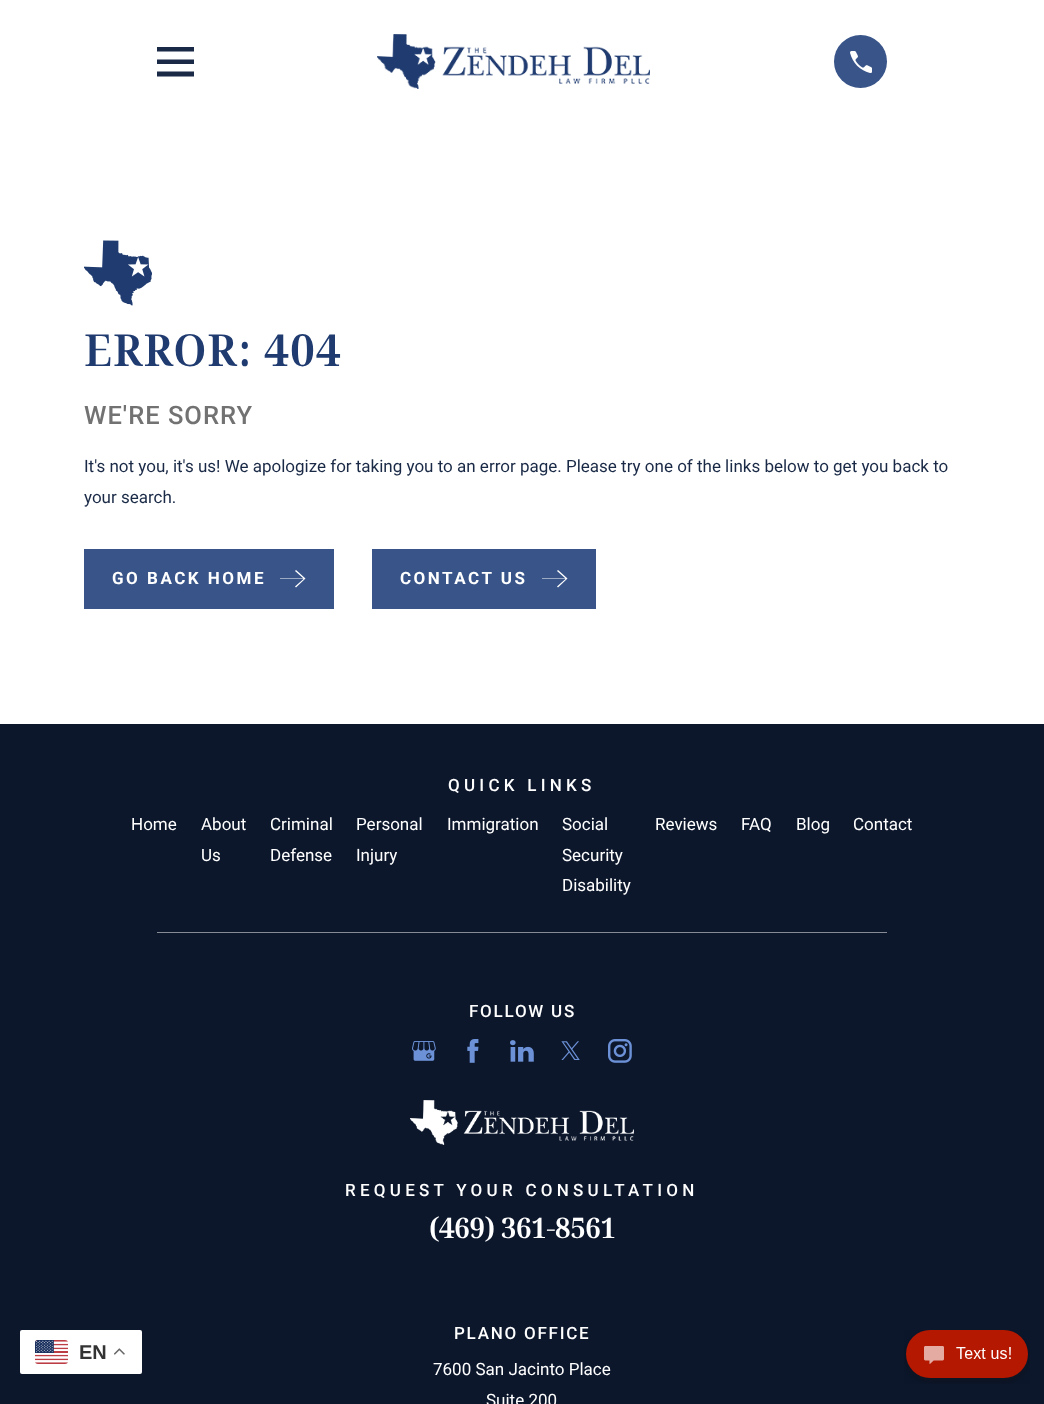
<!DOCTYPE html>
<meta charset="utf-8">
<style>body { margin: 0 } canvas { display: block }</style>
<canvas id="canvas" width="1044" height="1404"></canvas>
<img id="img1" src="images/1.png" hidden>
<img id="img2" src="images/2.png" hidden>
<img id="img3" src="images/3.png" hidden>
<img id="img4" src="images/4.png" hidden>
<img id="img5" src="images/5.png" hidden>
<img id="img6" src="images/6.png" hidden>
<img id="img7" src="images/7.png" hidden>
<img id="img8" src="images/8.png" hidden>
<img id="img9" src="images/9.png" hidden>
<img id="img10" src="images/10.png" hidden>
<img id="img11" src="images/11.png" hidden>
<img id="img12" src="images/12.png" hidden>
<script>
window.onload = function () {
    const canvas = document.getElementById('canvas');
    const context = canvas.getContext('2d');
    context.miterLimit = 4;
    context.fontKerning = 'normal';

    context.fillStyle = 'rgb(255, 255, 255)';
    context.fillRect(0, 0, 1044, 1404);
    context.save();
    context.beginPath();
    context.rect(157, 43, 37, 37);
    context.clip();
    context.fillStyle = 'rgb(25, 41, 70)';
    context.beginPath();
    context.moveTo(157, 47);
    context.lineTo(157, 51.5);
    context.lineTo(194.5, 51.5);
    context.lineTo(194.5, 47);
    context.closePath();
    context.moveTo(157, 59.5);
    context.lineTo(157, 64);
    context.lineTo(194.5, 64);
    context.lineTo(194.5, 59.5);
    context.closePath();
    context.moveTo(157, 71.5);
    context.lineTo(157, 76.5);
    context.lineTo(194.5, 76.5);
    context.lineTo(194.5, 71.5);
    context.closePath();
    context.fill();
    context.restore();
    context.drawImage(document.getElementById('img1'), 377, 34, 273, 55);
    context.fillStyle = 'rgb(56, 84, 137)';
    context.beginPath();
    context.arc(860.5, 61.5, 26.5, 0, 2 * Math.PI);
    context.fill();
    context.drawImage(document.getElementById('img2'), 850, 51, 22, 22);
    context.drawImage(document.getElementById('img3'), 84, 240, 68, 66);
    context.fillRect(84, 549, 250, 60);
    context.fillStyle = 'rgb(255, 255, 255)';
    context.beginPath();
    context.moveTo(295, 586.5);
    context.lineTo(296, 587.5);
    context.lineTo(305.5, 578.5);
    context.lineTo(296, 570);
    context.lineTo(295, 571);
    context.lineTo(303.5, 578.5);
    context.lineTo(280, 578.5);
    context.lineTo(280, 579);
    context.lineTo(303.5, 579);
    context.closePath();
    context.fill();
    context.fillStyle = 'rgb(56, 84, 137)';
    context.fillRect(372, 549, 224, 60);
    context.fillStyle = 'rgb(255, 255, 255)';
    context.beginPath();
    context.moveTo(557, 586.5);
    context.lineTo(558, 587.5);
    context.lineTo(567.5, 578.5);
    context.lineTo(558, 570);
    context.lineTo(557, 571);
    context.lineTo(565.5, 578.5);
    context.lineTo(542, 578.5);
    context.lineTo(542, 579);
    context.lineTo(565.5, 579);
    context.closePath();
    context.fill();
    context.fillStyle = 'rgb(12, 23, 44)';
    context.fillRect(0, 724, 1044, 680);
    context.fillStyle = 'rgb(255, 255, 255)';
    context.beginPath();
    context.roundRect(20, 1330, 122, 44, 2);
    context.fill();
    context.drawImage(document.getElementById('img4'), 35, 1340, 33, 24);
    context.drawImage(document.getElementById('img5'), 114, 1348, 11, 7);
    context.fillStyle = 'rgb(134, 139, 150)';
    context.fillRect(157, 932, 730, 1);
    context.drawImage(document.getElementById('img6'), 412, 1041, 24, 20);
    context.drawImage(document.getElementById('img7'), 467, 1039, 12, 24);
    context.drawImage(document.getElementById('img8'), 510, 1040, 24, 22);
    context.drawImage(document.getElementById('img9'), 561, 1041, 19, 19);
    context.drawImage(document.getElementById('img10'), 608, 1039, 24, 24);
    context.drawImage(document.getElementById('img11'), 410, 1100, 224, 45);
    context.drawImage(document.getElementById('img12'), 904, 1330, 126, 54);
    context.letterSpacing = '2.1px';
    context.font = 'bold 42.5px Noto Serif Display';
    context.fillStyle = 'rgb(31, 59, 112)';
    context.fillText('ERROR: 404', 84, 366);
    context.letterSpacing = '1px';
    context.font = '500 25.5px Roboto';
    context.fillStyle = 'rgb(114, 114, 114)';
    context.fillText('WE\'RE SORRY', 84, 424);
    context.letterSpacing = '0px';
    context.font = '17px Roboto';
    context.fillStyle = 'rgb(25, 41, 70)';
    context.fillText('It\'s not you, it\'s us! We apologize for taking you to an error page. Please try one of the links below to get you back to', 84, 472);
    context.fillText('your search.', 84, 503);
    context.letterSpacing = '2.5px';
    context.font = 'bold 17px Roboto';
    context.fillStyle = 'rgb(255, 255, 255)';
    context.fillText('GO BACK HOME', 112, 584);
    context.fillText('CONTACT US', 400, 584);
    context.letterSpacing = '0px';
    context.font = 'bold 20px Liberation Sans';
    context.fillStyle = 'rgb(51, 51, 51)';
    context.fillText('EN', 79, 1359);
    context.letterSpacing = '4.25px';
    context.font = '500 17px Roboto';
    context.fillStyle = 'rgb(255, 255, 255)';
    context.fillText('QUICK LINKS', 448, 791);
    context.letterSpacing = '0px';
    context.font = '17px Roboto';
    context.fillText('Home', 131, 830);
    context.fillText('About', 201, 830);
    context.fillText('Us', 201, 861);
    context.fillText('Criminal', 270, 830);
    context.fillText('Defense', 270, 861);
    context.fillText('Personal', 356, 830);
    context.fillText('Injury', 356, 861);
    context.fillText('Immigration', 447, 830);
    context.fillText('Social', 562, 830);
    context.fillText('Security', 562, 861);
    context.fillText('Disability', 562, 891);
    context.fillText('Reviews', 655, 830);
    context.fillText('FAQ', 741, 830);
    context.fillText('Blog', 796, 830);
    context.fillText('Contact', 853, 830);
    context.letterSpacing = '1.75px';
    context.font = '500 17px Roboto';
    context.fillText('FOLLOW US', 469, 1017);
    context.letterSpacing = '4.25px';
    context.fillText('REQUEST YOUR CONSULTATION', 345, 1196);
    context.letterSpacing = '0px';
    context.font = 'bold 27.25px Noto Serif Display';
    context.fillText('(469) 361-8561', 429, 1238);
    context.letterSpacing = '1.75px';
    context.font = '500 17px Roboto';
    context.fillText('PLANO OFFICE', 454, 1339);
    context.letterSpacing = '0px';
    context.font = '17px Roboto';
    context.fillText('7600 San Jacinto Place', 433, 1375);
    context.fillText('Suite 200', 486, 1406);
};
</script>
